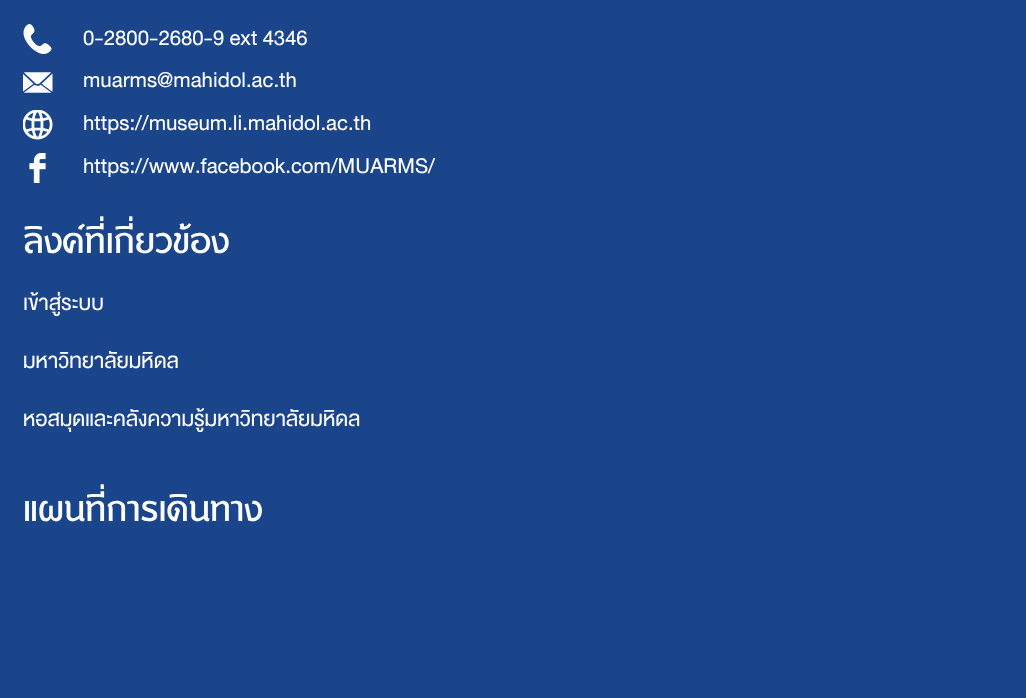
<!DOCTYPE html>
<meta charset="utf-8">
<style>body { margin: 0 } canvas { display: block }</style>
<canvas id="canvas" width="1026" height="698"></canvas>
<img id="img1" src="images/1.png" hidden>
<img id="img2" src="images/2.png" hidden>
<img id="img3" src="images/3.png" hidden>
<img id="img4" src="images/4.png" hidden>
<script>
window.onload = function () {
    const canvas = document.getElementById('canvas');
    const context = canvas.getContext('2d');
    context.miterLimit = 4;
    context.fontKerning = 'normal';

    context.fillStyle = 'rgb(26, 69, 138)';
    context.fillRect(0, 0, 1026, 698);
    context.drawImage(document.getElementById('img1'), 23, 24, 29, 30);
    context.drawImage(document.getElementById('img2'), 23, 72, 30, 21);
    context.drawImage(document.getElementById('img3'), 23, 110, 30, 30);
    context.drawImage(document.getElementById('img4'), 29, 153, 17, 30);
    context.font = '30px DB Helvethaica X';
    context.fillStyle = 'rgb(255, 255, 255)';
    context.fillText('0-2800-2680-9 ext 4346', 83, 45);
    context.fillText('muarms@mahidol.ac.th', 83, 87);
    context.fillText('https://museum.li.mahidol.ac.th', 83, 130);
    context.fillText('https://www.facebook.com/MUARMS/', 83, 173);
    context.font = '45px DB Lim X';
    context.fillText('ลิงค์ที่เกี่ยวข้อง', 23, 253);
    context.font = '30px DB Helvethaica X';
    context.fillText('เข้าสู่ระบบ', 23, 310);
    context.fillText('มหาวิทยาลัยมหิดล', 23, 368);
    context.fillText('หอสมุดและคลังความรู้มหาวิทยาลัยมหิดล', 23, 426);
    context.font = '45px DB Lim X';
    context.fillText('แผนที่การเดินทาง', 23, 521);
};
</script>
